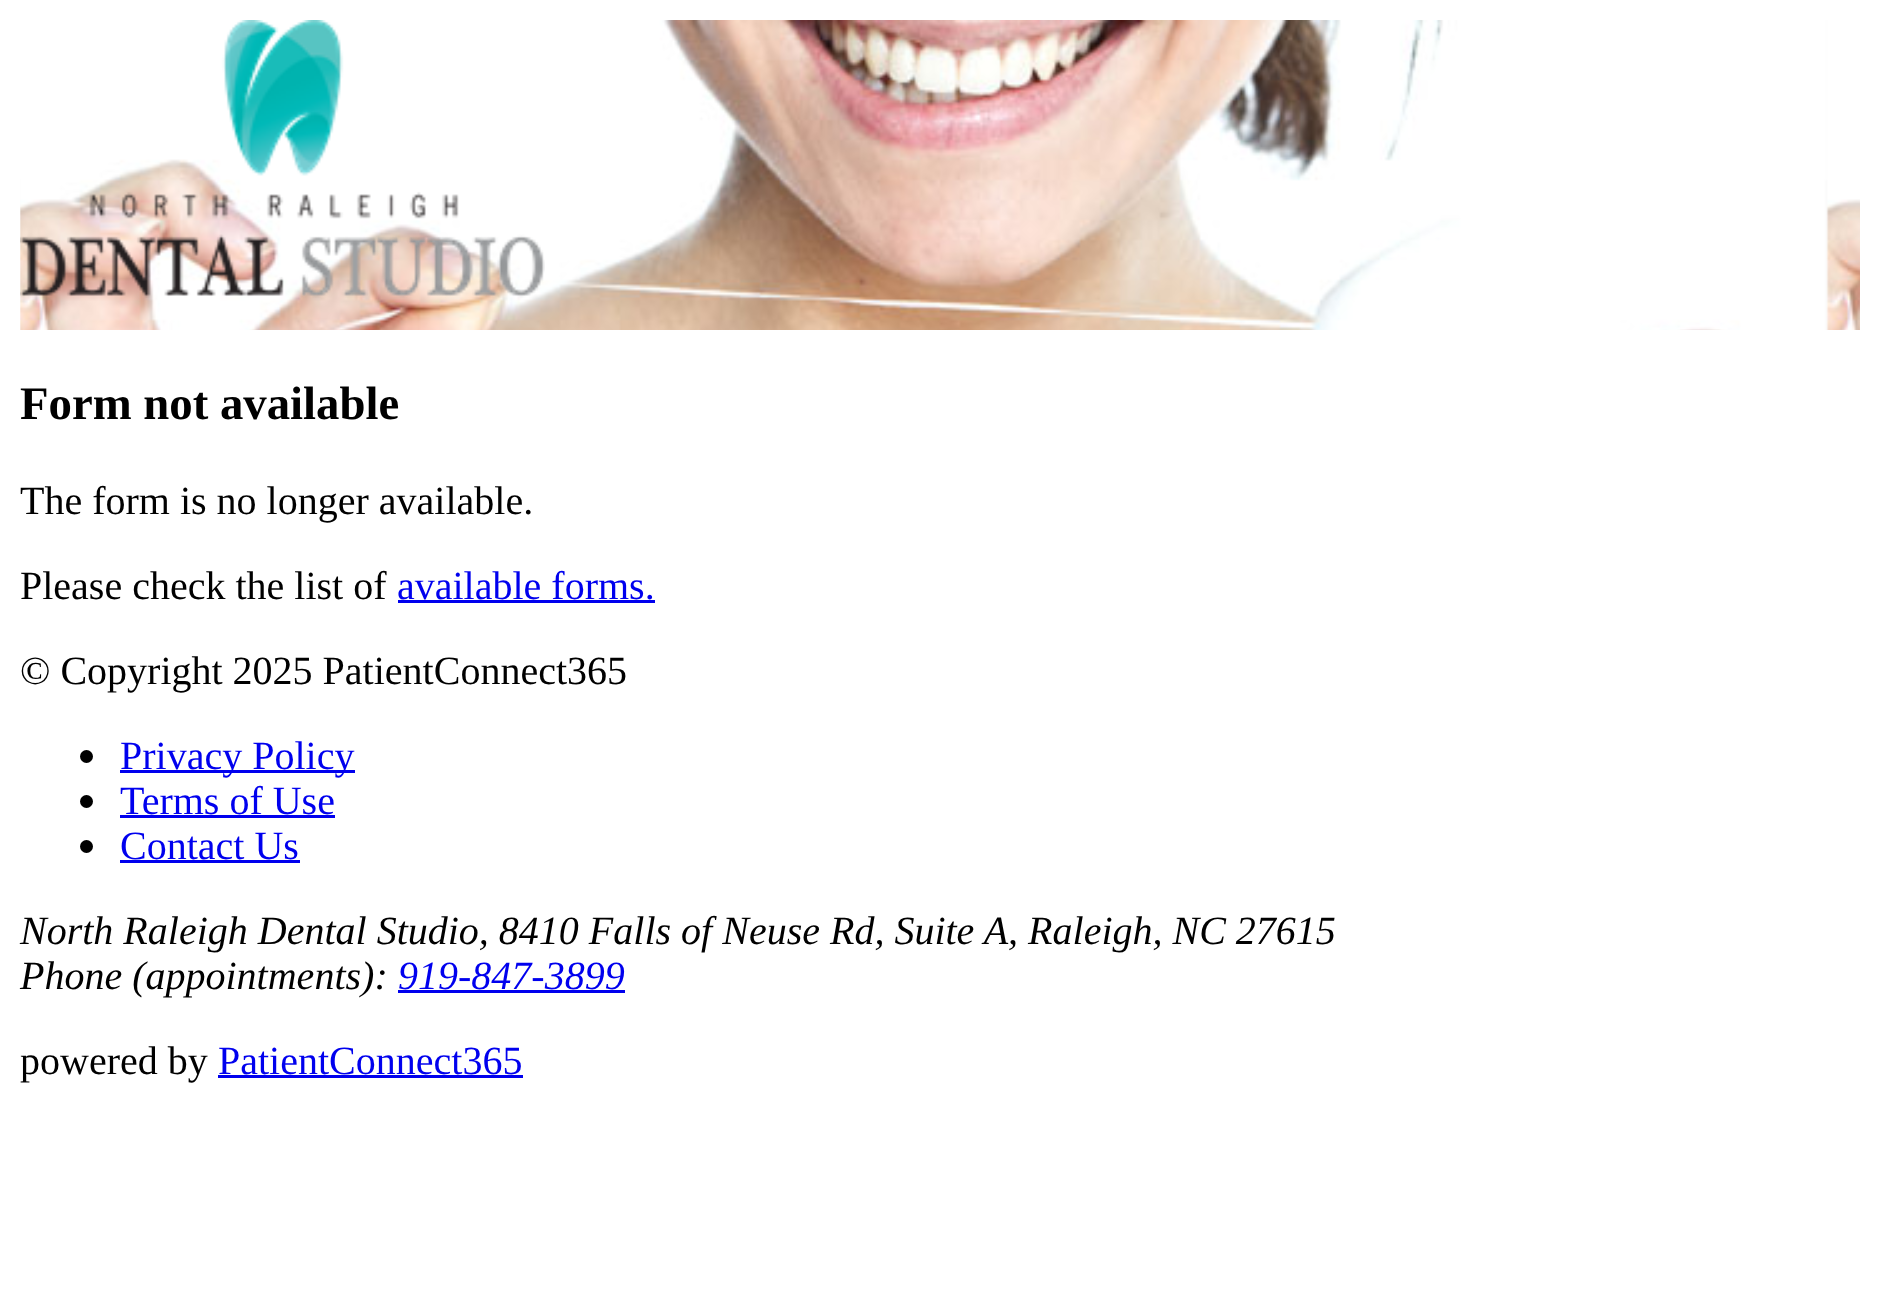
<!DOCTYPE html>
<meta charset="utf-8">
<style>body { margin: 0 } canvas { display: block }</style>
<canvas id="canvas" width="1878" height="1316"></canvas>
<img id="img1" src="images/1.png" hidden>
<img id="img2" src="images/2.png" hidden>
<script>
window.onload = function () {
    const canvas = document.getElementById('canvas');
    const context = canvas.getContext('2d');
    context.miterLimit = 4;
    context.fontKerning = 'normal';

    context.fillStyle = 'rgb(255, 255, 255)';
    context.fillRect(0, 0, 1878, 1316);
    context.drawImage(document.getElementById('img1'), 20, 20, 1840, 310);
    context.drawImage(document.getElementById('img2'), 20, 20, 525, 278);
    context.fillStyle = 'rgb(0, 0, 238)';
    context.fillRect(398, 600, 257, 3);
    context.fillStyle = 'rgb(0, 0, 0)';
    context.beginPath();
    context.arc(86.5, 756.5, 6.5, 0, 2 * Math.PI);
    context.fill();
    context.fillStyle = 'rgb(0, 0, 238)';
    context.fillRect(120, 770, 235, 3);
    context.fillStyle = 'rgb(0, 0, 0)';
    context.beginPath();
    context.arc(86.5, 801.5, 6.5, 0, 2 * Math.PI);
    context.fill();
    context.fillStyle = 'rgb(0, 0, 238)';
    context.fillRect(120, 815, 215, 3);
    context.fillStyle = 'rgb(0, 0, 0)';
    context.beginPath();
    context.arc(86.5, 846.5, 6.5, 0, 2 * Math.PI);
    context.fill();
    context.fillStyle = 'rgb(0, 0, 238)';
    context.fillRect(120, 860, 180, 3);
    context.fillRect(398, 990, 227, 3);
    context.fillRect(218, 1075, 305, 3);
    context.font = 'bold 46.75px Liberation Serif';
    context.fillStyle = 'rgb(0, 0, 0)';
    context.fillText('Form not available', 20, 419);
    context.font = '40px Liberation Serif';
    context.fillText('The form is no longer available.', 20, 514);
    context.fillText('Please check the list of', 20, 599);
    context.fillStyle = 'rgb(0, 0, 238)';
    context.fillText('available forms.', 397, 599);
    context.fillStyle = 'rgb(0, 0, 0)';
    context.fillText('© Copyright 2025 PatientConnect365', 20, 684);
    context.fillStyle = 'rgb(0, 0, 238)';
    context.fillText('Privacy Policy', 120, 769);
    context.fillText('Terms of Use', 120, 814);
    context.fillText('Contact Us', 120, 859);
    context.font = 'italic 40px Liberation Serif';
    context.fillStyle = 'rgb(0, 0, 0)';
    context.fillText('North Raleigh Dental Studio, 8410 Falls of Neuse Rd, Suite A, Raleigh, NC 27615', 20, 944);
    context.fillText('Phone (appointments):', 20, 989);
    context.fillStyle = 'rgb(0, 0, 238)';
    context.fillText('919-847-3899', 398, 989);
    context.font = '40px Liberation Serif';
    context.fillStyle = 'rgb(0, 0, 0)';
    context.fillText('powered by', 20, 1074);
    context.fillStyle = 'rgb(0, 0, 238)';
    context.fillText('PatientConnect365', 218, 1074);
};
</script>
